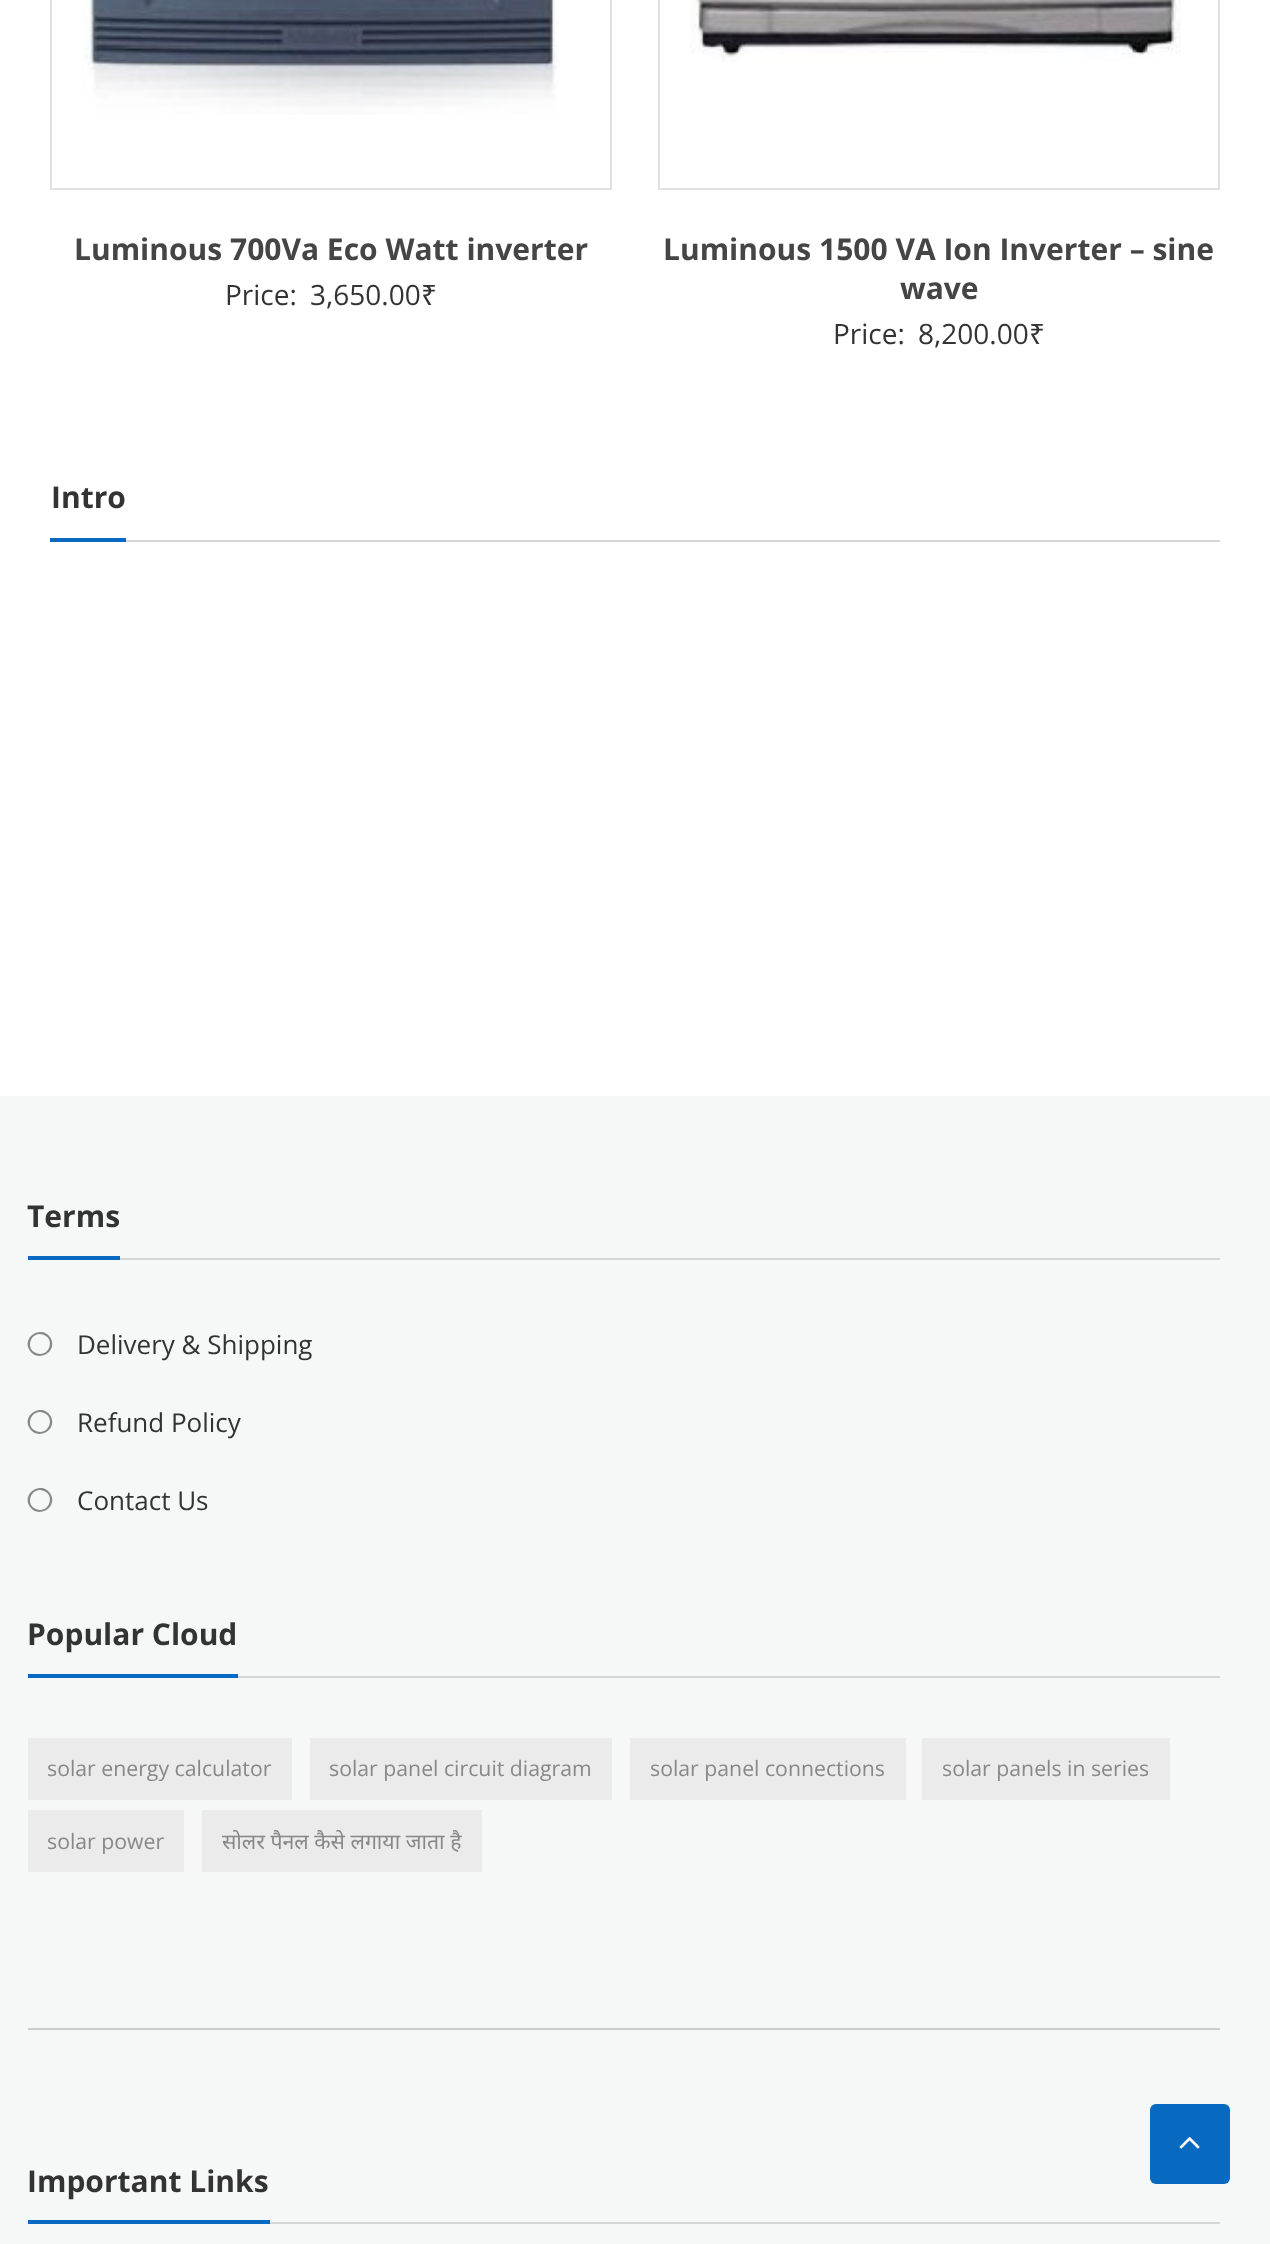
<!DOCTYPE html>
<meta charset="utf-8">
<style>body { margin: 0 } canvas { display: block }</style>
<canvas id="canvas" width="1270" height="2244"></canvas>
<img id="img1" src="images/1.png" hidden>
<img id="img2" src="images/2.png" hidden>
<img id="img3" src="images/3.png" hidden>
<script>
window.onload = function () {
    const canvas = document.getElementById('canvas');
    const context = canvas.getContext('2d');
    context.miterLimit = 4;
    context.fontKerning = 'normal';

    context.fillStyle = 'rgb(255, 255, 255)';
    context.fillRect(0, 0, 1270, 2244);
    context.strokeStyle = 'rgb(225, 225, 225)';
    context.lineWidth = 2;
    context.strokeRect(51, -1, 560, 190);
    context.drawImage(document.getElementById('img1'), 82, 0, 476, 115);
    context.strokeRect(659, -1, 560, 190);
    context.drawImage(document.getElementById('img2'), 690, 0, 491, 62);
    context.fillStyle = 'rgb(214, 214, 214)';
    context.fillRect(126, 540, 1094, 2);
    context.fillStyle = 'rgb(7, 105, 191)';
    context.fillRect(50, 538, 76, 4);
    context.fillStyle = 'rgb(246, 247, 247)';
    context.fillRect(0, 1096, 1270, 1148);
    context.fillStyle = 'rgb(214, 214, 214)';
    context.fillRect(120, 1258, 1100, 2);
    context.fillStyle = 'rgb(7, 105, 191)';
    context.fillRect(28, 1256, 92, 4);
    context.fillStyle = 'rgb(136, 136, 136)';
    context.beginPath();
    context.moveTo(44, 1335);
    context.bezierCurveTo(32, 1329.5, 24, 1348, 36, 1353);
    context.bezierCurveTo(48, 1358.5, 56, 1340, 44, 1335);
    context.closePath();
    context.moveTo(50.5, 1338);
    context.bezierCurveTo(58.5, 1351.5, 37.5, 1363.5, 29.5, 1350);
    context.bezierCurveTo(21.5, 1336.5, 42.5, 1324.5, 50.5, 1338);
    context.closePath();
    context.fill();
    context.beginPath();
    context.moveTo(44, 1413);
    context.bezierCurveTo(32, 1407.5, 24, 1426, 36, 1431);
    context.bezierCurveTo(48, 1436.5, 56, 1418, 44, 1413);
    context.closePath();
    context.moveTo(50.5, 1416);
    context.bezierCurveTo(58.5, 1429.5, 37.5, 1441.5, 29.5, 1428);
    context.bezierCurveTo(21.5, 1414.5, 42.5, 1402.5, 50.5, 1416);
    context.closePath();
    context.fill();
    context.beginPath();
    context.moveTo(44, 1491);
    context.bezierCurveTo(32, 1485.5, 24, 1504, 36, 1509);
    context.bezierCurveTo(48, 1514.5, 56, 1496, 44, 1491);
    context.closePath();
    context.moveTo(50.5, 1494);
    context.bezierCurveTo(58.5, 1507.5, 37.5, 1519.5, 29.5, 1506);
    context.bezierCurveTo(21.5, 1492.5, 42.5, 1480.5, 50.5, 1494);
    context.closePath();
    context.fill();
    context.fillStyle = 'rgb(214, 214, 214)';
    context.fillRect(238, 1676, 982, 2);
    context.fillStyle = 'rgb(7, 105, 191)';
    context.fillRect(28, 1674, 210, 4);
    context.fillStyle = 'rgb(235, 235, 235)';
    context.fillRect(28, 1738, 264, 62);
    context.fillRect(310, 1738, 302, 62);
    context.fillRect(630, 1738, 276, 62);
    context.fillRect(922, 1738, 248, 62);
    context.fillRect(28, 1810, 156, 62);
    context.fillRect(202, 1810, 280, 62);
    context.fillStyle = 'rgb(204, 204, 204)';
    context.fillRect(28, 2028, 1192, 2);
    context.fillStyle = 'rgb(214, 214, 214)';
    context.fillRect(270, 2222, 950, 2);
    context.fillStyle = 'rgb(7, 105, 191)';
    context.fillRect(28, 2220, 242, 4);
    context.beginPath();
    context.roundRect(1150, 2104, 80, 80, 6);
    context.fill();
    context.drawImage(document.getElementById('img3'), 1179, 2137, 21, 12);
    context.font = 'bold 30px Open Sans';
    context.fillStyle = 'rgb(69, 69, 69)';
    context.fillText('Luminous 700Va Eco Watt inverter', 74, 260);
    context.font = '28px Open Sans';
    context.fillStyle = 'rgb(51, 51, 51)';
    context.fillText('Price:', 225, 305);
    context.fillText('3,650.00', 310, 305);
    context.font = '28px Noto Sans';
    context.fillText('₹', 421, 305);
    context.font = 'bold 30px Open Sans';
    context.fillStyle = 'rgb(69, 69, 69)';
    context.fillText('Luminous 1500 VA Ion Inverter – sine', 663, 260);
    context.fillText('wave', 900, 299);
    context.font = '28px Open Sans';
    context.fillStyle = 'rgb(51, 51, 51)';
    context.fillText('Price:', 833, 344);
    context.fillText('8,200.00', 918, 344);
    context.font = '28px Noto Sans';
    context.fillText('₹', 1029, 344);
    context.font = 'bold 30px Open Sans';
    context.fillText('Intro', 51, 508);
    context.fillText('Terms', 27, 1227);
    context.font = '26px Open Sans';
    context.fillText('Delivery & Shipping', 77, 1354);
    context.fillText('Refund Policy', 77, 1432);
    context.fillText('Contact Us', 77, 1510);
    context.font = 'bold 30px Open Sans';
    context.fillText('Popular Cloud', 27, 1645);
    context.font = '21.25px Open Sans';
    context.fillStyle = 'rgb(136, 136, 136)';
    context.fillText('solar energy calculator', 47, 1776);
    context.fillText('solar panel circuit diagram', 329, 1776);
    context.fillText('solar panel connections', 650, 1776);
    context.fillText('solar panels in series', 942, 1776);
    context.fillText('solar power', 47, 1849);
    context.font = '21.25px Noto Sans';
    context.fillText('सोलर पैनल कैसे लगाया जाता है', 222, 1849);
    context.font = 'bold 30px Open Sans';
    context.fillStyle = 'rgb(51, 51, 51)';
    context.fillText('Important Links', 27, 2192);
};
</script>
